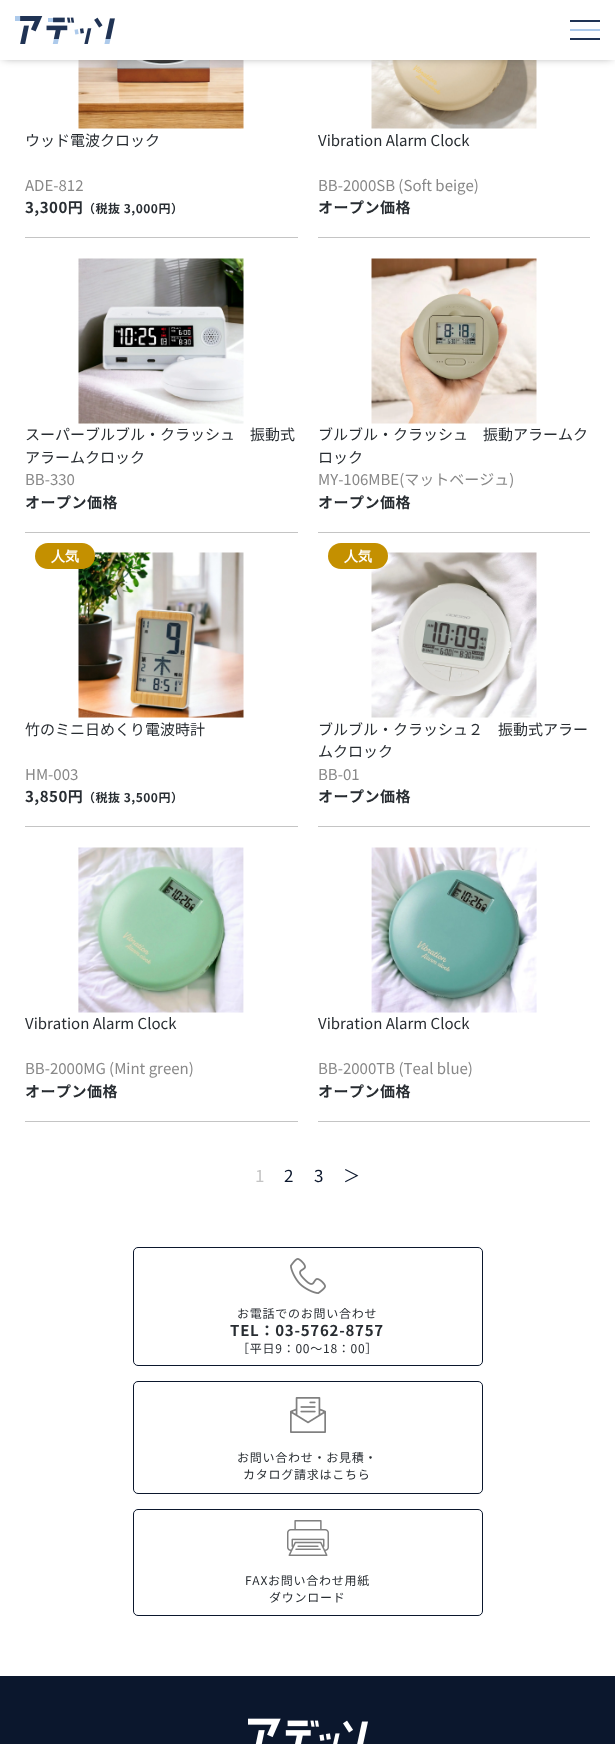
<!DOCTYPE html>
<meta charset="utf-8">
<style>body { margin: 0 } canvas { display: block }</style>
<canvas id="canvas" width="615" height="1744"></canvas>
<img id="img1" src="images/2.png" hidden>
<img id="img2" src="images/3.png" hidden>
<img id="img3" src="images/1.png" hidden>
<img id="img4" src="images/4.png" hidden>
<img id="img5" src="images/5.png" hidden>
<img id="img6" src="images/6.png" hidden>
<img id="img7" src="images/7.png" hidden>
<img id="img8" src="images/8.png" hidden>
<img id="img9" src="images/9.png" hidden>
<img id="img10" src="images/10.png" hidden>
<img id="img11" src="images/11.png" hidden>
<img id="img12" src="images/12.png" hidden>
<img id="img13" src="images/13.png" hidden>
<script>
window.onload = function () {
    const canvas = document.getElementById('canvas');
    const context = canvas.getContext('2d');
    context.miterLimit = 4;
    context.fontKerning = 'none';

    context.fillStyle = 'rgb(255, 255, 255)';
    context.fillRect(0, 0, 615, 1744);
    context.drawImage(document.getElementById('img1'), 78, 60, 166, 69);
    context.drawImage(document.getElementById('img2'), 371, 60, 166, 69);
    context.fillStyle = 'rgba(0, 0, 0, 0.5)';
    context.filter = 'blur(5px)';
    context.beginPath();
    context.rect(3, 3, 609, 54);
    context.fill();
    context.filter = 'none';
    context.fillStyle = 'rgb(255, 255, 255)';
    context.fillRect(0, 0, 615, 60);
    context.drawImage(document.getElementById('img3'), 15, 16, 100, 28);
    context.fillStyle = 'rgb(32, 51, 84)';
    context.fillRect(570, 20, 30, 2);
    context.fillStyle = 'rgb(173, 202, 235)';
    context.fillRect(570, 29, 30, 2);
    context.fillStyle = 'rgb(32, 51, 84)';
    context.fillRect(570, 38, 30, 2);
    context.fillStyle = 'rgb(196, 196, 196)';
    context.fillRect(25, 237, 273, 1);
    context.fillRect(318, 237, 272, 1);
    context.fillRect(25, 532, 273, 1);
    context.drawImage(document.getElementById('img4'), 78, 258, 166, 166);
    context.fillRect(318, 532, 272, 1);
    context.drawImage(document.getElementById('img5'), 371, 258, 166, 166);
    context.fillRect(25, 826, 273, 1);
    context.drawImage(document.getElementById('img6'), 78, 552, 166, 166);
    context.fillStyle = 'rgb(196, 144, 0)';
    context.beginPath();
    context.roundRect(35, 543, 60, 26, 13);
    context.fill();
    context.fillStyle = 'rgb(196, 196, 196)';
    context.fillRect(318, 826, 272, 1);
    context.drawImage(document.getElementById('img7'), 371, 552, 166, 166);
    context.fillStyle = 'rgb(196, 144, 0)';
    context.beginPath();
    context.roundRect(328, 543, 60, 26, 13);
    context.fill();
    context.fillStyle = 'rgb(196, 196, 196)';
    context.fillRect(25, 1121, 273, 1);
    context.drawImage(document.getElementById('img8'), 78, 847, 166, 166);
    context.fillRect(318, 1121, 272, 1);
    context.drawImage(document.getElementById('img9'), 371, 847, 166, 166);
    context.beginPath();
    context.roundRect(133.5, 1247.5, 349, 118, 4.5);
    context.strokeStyle = 'rgb(11, 23, 45)';
    context.stroke();
    context.drawImage(document.getElementById('img10'), 290, 1258, 36, 36);
    context.beginPath();
    context.roundRect(133.5, 1381.5, 349, 112, 4.5);
    context.stroke();
    context.drawImage(document.getElementById('img11'), 290, 1397, 36, 36);
    context.beginPath();
    context.roundRect(133.5, 1509.5, 349, 106, 4.5);
    context.stroke();
    context.drawImage(document.getElementById('img12'), 287, 1520, 42, 36);
    context.fillStyle = 'rgb(11, 23, 45)';
    context.fillRect(0, 1676, 615, 68);
    context.drawImage(document.getElementById('img13'), 248, 1718, 120, 26);
    context.font = '15px Noto Sans JP';
    context.fillStyle = 'rgb(40, 45, 50)';
    context.fillText('ウッド電波クロック', 25, 146);
    context.fillStyle = 'rgb(136, 136, 136)';
    context.fillText('ADE-812', 25, 191);
    context.letterSpacing = '0.5px';
    context.font = 'bold 15px Noto Sans JP';
    context.fillStyle = 'rgb(40, 45, 50)';
    context.fillText('3,300円', 25, 213);
    context.font = 'bold 12px Noto Sans JP';
    context.fillText('（税抜 3,000円）', 83, 213);
    context.letterSpacing = '0px';
    context.font = '15px Noto Sans JP';
    context.fillText('Vibration Alarm Clock', 318, 146);
    context.fillStyle = 'rgb(136, 136, 136)';
    context.fillText('BB-2000SB (Soft beige)', 318, 191);
    context.letterSpacing = '0.5px';
    context.font = 'bold 15px Noto Sans JP';
    context.fillStyle = 'rgb(40, 45, 50)';
    context.fillText('オープン価格', 318, 213);
    context.letterSpacing = '0px';
    context.font = '15px Noto Sans JP';
    context.fillText('スーパーブルブル・クラッシュ　振動式', 25, 440);
    context.fillText('アラームクロック', 25, 463);
    context.fillStyle = 'rgb(136, 136, 136)';
    context.fillText('BB-330', 25, 485);
    context.letterSpacing = '0.5px';
    context.font = 'bold 15px Noto Sans JP';
    context.fillStyle = 'rgb(40, 45, 50)';
    context.fillText('オープン価格', 25, 508);
    context.letterSpacing = '0px';
    context.font = '15px Noto Sans JP';
    context.fillText('ブルブル・クラッシュ　振動アラームク', 318, 440);
    context.fillText('ロック', 318, 463);
    context.fillStyle = 'rgb(136, 136, 136)';
    context.fillText('MY-106MBE(マットベージュ)', 318, 485);
    context.letterSpacing = '0.5px';
    context.font = 'bold 15px Noto Sans JP';
    context.fillStyle = 'rgb(40, 45, 50)';
    context.fillText('オープン価格', 318, 508);
    context.letterSpacing = '0px';
    context.font = 'bold 14px WenQuanYi Zen Hei';
    context.fillStyle = 'rgb(255, 255, 255)';
    context.fillText('人気', 51, 561);
    context.font = '15px Noto Sans JP';
    context.fillStyle = 'rgb(40, 45, 50)';
    context.fillText('竹のミニ日めくり電波時計', 25, 735);
    context.fillStyle = 'rgb(136, 136, 136)';
    context.fillText('HM-003', 25, 780);
    context.letterSpacing = '0.5px';
    context.font = 'bold 15px Noto Sans JP';
    context.fillStyle = 'rgb(40, 45, 50)';
    context.fillText('3,850円', 25, 802);
    context.font = 'bold 12px Noto Sans JP';
    context.fillText('（税抜 3,500円）', 83, 802);
    context.letterSpacing = '0px';
    context.font = 'bold 14px WenQuanYi Zen Hei';
    context.fillStyle = 'rgb(255, 255, 255)';
    context.fillText('人気', 344, 561);
    context.font = '15px Noto Sans JP';
    context.fillStyle = 'rgb(40, 45, 50)';
    context.fillText('ブルブル・クラッシュ２　振動式アラー', 318, 735);
    context.fillText('ムクロック', 318, 757);
    context.fillStyle = 'rgb(136, 136, 136)';
    context.fillText('BB-01', 318, 780);
    context.letterSpacing = '0.5px';
    context.font = 'bold 15px Noto Sans JP';
    context.fillStyle = 'rgb(40, 45, 50)';
    context.fillText('オープン価格', 318, 802);
    context.letterSpacing = '0px';
    context.font = '15px Noto Sans JP';
    context.fillText('Vibration Alarm Clock', 25, 1029);
    context.fillStyle = 'rgb(136, 136, 136)';
    context.fillText('BB-2000MG (Mint green)', 25, 1074);
    context.letterSpacing = '0.5px';
    context.font = 'bold 15px Noto Sans JP';
    context.fillStyle = 'rgb(40, 45, 50)';
    context.fillText('オープン価格', 25, 1097);
    context.letterSpacing = '0px';
    context.font = '15px Noto Sans JP';
    context.fillText('Vibration Alarm Clock', 318, 1029);
    context.fillStyle = 'rgb(136, 136, 136)';
    context.fillText('BB-2000TB (Teal blue)', 318, 1074);
    context.letterSpacing = '0.5px';
    context.font = 'bold 15px Noto Sans JP';
    context.fillStyle = 'rgb(40, 45, 50)';
    context.fillText('オープン価格', 318, 1097);
    context.letterSpacing = '0px';
    context.font = '17px Noto Sans JP';
    context.fillStyle = 'rgb(196, 196, 196)';
    context.fillText('1', 255, 1182);
    context.fillStyle = 'rgb(11, 23, 45)';
    context.fillText('2', 284, 1182);
    context.fillText('3', 314, 1182);
    context.fillText('＞', 343, 1182);
    context.letterSpacing = '0.75px';
    context.font = '12px Noto Sans JP';
    context.fillStyle = 'rgb(40, 45, 50)';
    context.fillText('お電話でのお問い合わせ', 237, 1318);
    context.font = 'bold 15px Noto Sans JP';
    context.fillText('TEL：03-5762-8757', 230, 1336);
    context.font = '12px Noto Sans JP';
    context.fillText('［平日9：00〜18：00］', 237, 1353);
    context.fillText('お問い合わせ・お見積・', 237, 1462);
    context.fillText('カタログ請求はこちら', 243, 1479);
    context.fillText('FAXお問い合わせ用紙', 245, 1585);
    context.fillText('ダウンロード', 269, 1602);
};
</script>
